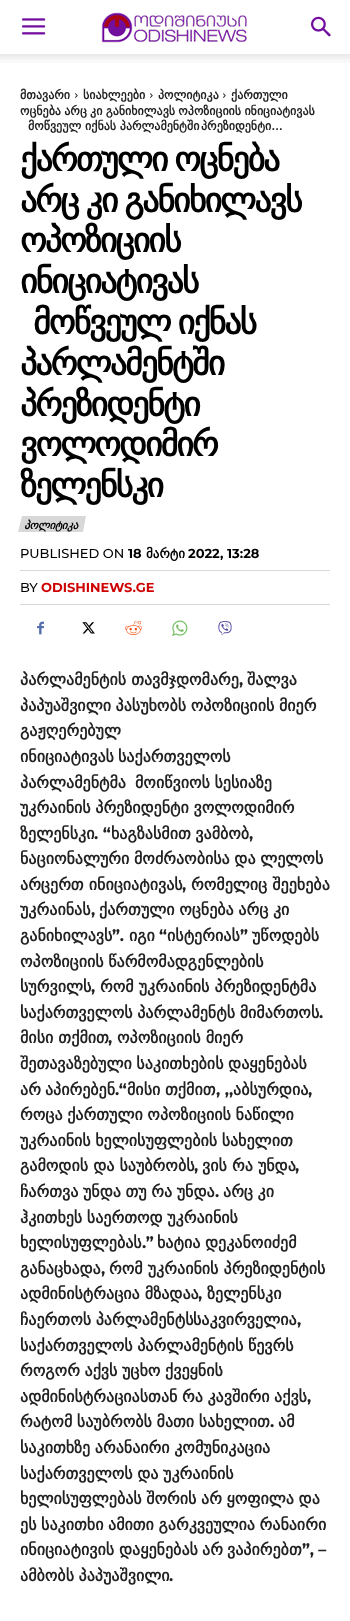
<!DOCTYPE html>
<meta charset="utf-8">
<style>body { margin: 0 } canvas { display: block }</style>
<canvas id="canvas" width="350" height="1621"></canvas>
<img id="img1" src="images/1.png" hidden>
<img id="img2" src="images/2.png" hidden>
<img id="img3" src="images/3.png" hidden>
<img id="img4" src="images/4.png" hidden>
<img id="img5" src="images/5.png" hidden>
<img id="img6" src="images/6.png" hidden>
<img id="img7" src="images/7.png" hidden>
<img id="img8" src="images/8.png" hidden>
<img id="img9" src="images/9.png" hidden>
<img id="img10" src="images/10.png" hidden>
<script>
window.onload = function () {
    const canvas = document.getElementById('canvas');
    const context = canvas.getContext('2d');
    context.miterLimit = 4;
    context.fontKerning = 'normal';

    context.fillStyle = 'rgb(255, 255, 255)';
    context.fillRect(0, 0, 350, 1621);
    context.drawImage(document.getElementById('img1'), 22, 18, 24, 17);
    context.drawImage(document.getElementById('img2'), 101, 12, 146, 31);
    context.drawImage(document.getElementById('img3'), 311, 16, 20, 21);
    context.drawImage(document.getElementById('img4'), 0, 54, 350, 9);
    context.drawImage(document.getElementById('img5'), 75, 93, 3, 5);
    context.drawImage(document.getElementById('img5'), 150, 93, 3, 5);
    context.drawImage(document.getElementById('img5'), 223, 93, 3, 5);
    context.fillStyle = 'rgb(216, 216, 216)';
    context.beginPath();
    context.moveTo(22, 516);
    context.lineTo(86, 516);
    context.lineTo(83, 532);
    context.lineTo(18, 532);
    context.closePath();
    context.fill();
    context.fillRect(20, 570, 310, 1);
    context.fillRect(20, 604, 310, 1);
    context.drawImage(document.getElementById('img6'), 37, 621, 7, 14);
    context.drawImage(document.getElementById('img7'), 82, 622, 13, 12);
    context.drawImage(document.getElementById('img8'), 125, 621, 17, 14);
    context.drawImage(document.getElementById('img9'), 172, 620, 16, 16);
    context.drawImage(document.getElementById('img10'), 218, 621, 14, 14);
    context.font = 'bold 12px DejaVu Sans';
    context.fillStyle = 'rgb(34, 34, 34)';
    context.fillText('მთავარი', 20, 99);
    context.fillText('სიახლეები', 83, 99);
    context.fillText('პოლიტიკა', 158, 99);
    context.fillText('ქართული', 231, 99);
    context.wordSpacing = '-0.5px';
    context.fillText('ოცნება არც კი განიხილავს ოპოზიციის ინიციატივას', 20, 115);
    context.wordSpacing = '0px';
    context.fillText('მოწვეულ იქნას პარლამენტში', 28, 130);
    context.fillText('პრეზიდენტი...', 201, 130);
    context.letterSpacing = '-2px';
    context.wordSpacing = '-1px';
    context.font = 'bold 34px DejaVu Sans';
    context.fillStyle = 'rgb(0, 0, 0)';
    context.fillText('ქართული ოცნება', 20, 171);
    context.fillText('არც კი განიხილავს', 20, 212);
    context.wordSpacing = '0px';
    context.fillText('ოპოზიციის', 20, 252);
    context.fillText('ინიციატივას', 20, 293);
    context.wordSpacing = '-1px';
    context.fillText('მოწვეულ იქნას', 33, 334);
    context.wordSpacing = '0px';
    context.fillText('პარლამენტში', 20, 375);
    context.fillText('პრეზიდენტი', 20, 416);
    context.fillText('ვოლოდიმირ', 20, 456);
    context.fillText('ზელენსკი', 20, 497);
    context.letterSpacing = '-0.25px';
    context.font = 'italic bold 11px DejaVu Sans';
    context.fillText('პოლიტიკა', 24, 529);
    context.letterSpacing = '0px';
    context.font = '500 13px Montserrat';
    context.fillText('PUBLISHED ON', 20, 558);
    context.font = 'bold 13px Montserrat';
    context.fillText('18', 128, 558);
    context.font = 'bold 13px DejaVu Sans';
    context.fillText('მარტი', 146, 558);
    context.font = 'bold 13px Montserrat';
    context.fillText('2022, 13:28', 188, 558);
    context.font = '500 13px Montserrat';
    context.fillText('BY', 20, 592);
    context.font = 'bold 13px Montserrat';
    context.fillStyle = 'rgb(206, 0, 0)';
    context.fillText('ODISHINEWS.GE', 41, 592);
    context.font = 'bold 16px DejaVu Sans';
    context.fillStyle = 'rgb(34, 34, 34)';
    context.fillText('პარლამენტის თავმჯდომარე', 20, 685);
    context.font = 'bold 16px Montserrat';
    context.fillText(',', 239, 685);
    context.font = 'bold 16px DejaVu Sans';
    context.fillText('შალვა', 247, 685);
    context.wordSpacing = '-0.5px';
    context.fillText('პაპუაშვილი პასუხობს ოპოზიციის მიერ', 20, 711);
    context.wordSpacing = '0px';
    context.fillText('გაჟღერებულ', 20, 736);
    context.fillText('ინიციატივას', 20, 762);
    context.fillText('საქართველოს', 118, 762);
    context.fillText('პარლამენტმა', 20, 788);
    context.wordSpacing = '-0.5px';
    context.fillText('მოიწვიოს სესიაზე', 135, 788);
    context.fillText('უკრაინის პრეზიდენტი ვოლოდიმირ', 20, 813);
    context.wordSpacing = '0px';
    context.fillText('ზელენსკი', 20, 839);
    context.font = 'bold 16px Montserrat';
    context.fillText('. “', 94, 839);
    context.wordSpacing = '-0.5px';
    context.font = 'bold 16px DejaVu Sans';
    context.fillText('ხაგზასმით ვამბობ', 111, 839);
    context.wordSpacing = '0px';
    context.font = 'bold 16px Montserrat';
    context.fillText(',', 249, 839);
    context.wordSpacing = '-0.5px';
    context.font = 'bold 16px DejaVu Sans';
    context.fillText('ნაციონალური მოძრაობისა და ლელოს', 20, 864);
    context.wordSpacing = '0px';
    context.fillText('არცერთ ინიციატივას', 20, 890);
    context.font = 'bold 16px Montserrat';
    context.fillText(',', 182, 890);
    context.font = 'bold 16px DejaVu Sans';
    context.fillText('რომელიც შეეხება', 191, 890);
    context.fillText('უკრაინას', 20, 915);
    context.font = 'bold 16px Montserrat';
    context.fillText(',', 91, 915);
    context.wordSpacing = '-0.5px';
    context.font = 'bold 16px DejaVu Sans';
    context.fillText('ქართული ოცნება არც კი', 99, 915);
    context.wordSpacing = '0px';
    context.fillText('განიხილავს', 20, 941);
    context.font = 'bold 16px Montserrat';
    context.fillText('”.', 112, 941);
    context.font = 'bold 16px DejaVu Sans';
    context.fillText('იგი', 129, 941);
    context.font = 'bold 16px Montserrat';
    context.fillText('“', 159, 941);
    context.font = 'bold 16px DejaVu Sans';
    context.fillText('ისტერიას', 167, 941);
    context.font = 'bold 16px Montserrat';
    context.fillText('”', 240, 941);
    context.font = 'bold 16px DejaVu Sans';
    context.fillText('უწოდებს', 252, 941);
    context.wordSpacing = '-0.5px';
    context.fillText('ოპოზიციის წარმომადგენლების', 20, 967);
    context.wordSpacing = '0px';
    context.fillText('სურვილს', 20, 992);
    context.font = 'bold 16px Montserrat';
    context.fillText(',', 91, 992);
    context.font = 'bold 16px DejaVu Sans';
    context.fillText('რომ უკრაინის პრეზიდენტმა', 100, 992);
    context.wordSpacing = '-0.5px';
    context.fillText('საქართველოს პარლამენტს მიმართოს', 20, 1018);
    context.wordSpacing = '0px';
    context.font = 'bold 16px Montserrat';
    context.fillText('.', 319, 1018);
    context.font = 'bold 16px DejaVu Sans';
    context.fillText('მისი თქმით', 20, 1043);
    context.font = 'bold 16px Montserrat';
    context.fillText(',', 108, 1043);
    context.font = 'bold 16px DejaVu Sans';
    context.fillText('ოპოზიციის მიერ', 117, 1043);
    context.wordSpacing = '-0.5px';
    context.fillText('შეთავაზებული საკითხების დაყენებას', 20, 1069);
    context.wordSpacing = '-1px';
    context.fillText('არ აპირებენ', 20, 1095);
    context.wordSpacing = '0px';
    context.font = 'bold 16px Montserrat';
    context.fillText('.“', 115, 1095);
    context.font = 'bold 16px DejaVu Sans';
    context.fillText('მისი', 127, 1095);
    context.fillText('თქმით', 165, 1095);
    context.font = 'bold 16px Montserrat';
    context.fillText(', ,,', 216, 1095);
    context.font = 'bold 16px DejaVu Sans';
    context.fillText('აბსურდია', 233, 1095);
    context.font = 'bold 16px Montserrat';
    context.fillText(',', 308, 1095);
    context.wordSpacing = '-0.5px';
    context.font = 'bold 16px DejaVu Sans';
    context.fillText('როცა ქართული ოპოზიციის ნაწილი', 20, 1120);
    context.fillText('უკრაინის ხელისუფლების სახელით', 20, 1146);
    context.wordSpacing = '0px';
    context.fillText('გამოდის და საუბრობს', 20, 1171);
    context.font = 'bold 16px Montserrat';
    context.fillText(',', 194, 1171);
    context.font = 'bold 16px DejaVu Sans';
    context.fillText('ვის რა უნდა', 202, 1171);
    context.font = 'bold 16px Montserrat';
    context.fillText(',', 295, 1171);
    context.wordSpacing = '-0.5px';
    context.font = 'bold 16px DejaVu Sans';
    context.fillText('ჩართვა უნდა თუ რა უნდა', 20, 1197);
    context.wordSpacing = '0px';
    context.font = 'bold 16px Montserrat';
    context.fillText('.', 215, 1197);
    context.wordSpacing = '-0.5px';
    context.font = 'bold 16px DejaVu Sans';
    context.fillText('არც კი', 223, 1197);
    context.fillText('ჰკითხეს საერთოდ უკრაინის', 20, 1223);
    context.wordSpacing = '0px';
    context.fillText('ხელისუფლებას', 20, 1248);
    context.font = 'bold 16px Montserrat';
    context.fillText('.”', 142, 1248);
    context.wordSpacing = '-0.5px';
    context.font = 'bold 16px DejaVu Sans';
    context.fillText('ხატია დეკანოიძემ', 157, 1248);
    context.wordSpacing = '0px';
    context.fillText('განაცხადა', 20, 1274);
    context.font = 'bold 16px Montserrat';
    context.fillText(',', 101, 1274);
    context.font = 'bold 16px DejaVu Sans';
    context.fillText('რომ უკრაინის პრეზიდენტის', 109, 1274);
    context.fillText('ადმინისტრაცია მზადაა', 20, 1299);
    context.font = 'bold 16px Montserrat';
    context.fillText(',', 198, 1299);
    context.font = 'bold 16px DejaVu Sans';
    context.fillText('ზელენსკი', 207, 1299);
    context.wordSpacing = '-0.5px';
    context.fillText('ჩაერთოს პარლამენტს', 20, 1325);
    context.wordSpacing = '0px';
    context.fillText('საკვირველია', 193, 1325);
    context.font = 'bold 16px Montserrat';
    context.fillText(',', 297, 1325);
    context.wordSpacing = '-0.5px';
    context.font = 'bold 16px DejaVu Sans';
    context.fillText('საქართველოს პარლამენტის წევრს', 20, 1351);
    context.fillText('როგორ აქვს უცხო ქვეყნის', 20, 1376);
    context.fillText('ადმინისტრაციასთან რა კავშირი აქვს', 20, 1402);
    context.wordSpacing = '0px';
    context.font = 'bold 16px Montserrat';
    context.fillText(',', 307, 1402);
    context.wordSpacing = '-0.5px';
    context.font = 'bold 16px DejaVu Sans';
    context.fillText('რატომ საუბრობს მათი სახელით', 20, 1427);
    context.wordSpacing = '0px';
    context.font = 'bold 16px Montserrat';
    context.fillText('.', 270, 1427);
    context.font = 'bold 16px DejaVu Sans';
    context.fillText('ამ', 278, 1427);
    context.wordSpacing = '-0.5px';
    context.fillText('საკითხზე არანაირი კომუნიკაცია', 20, 1453);
    context.fillText('საქართველოს და უკრაინის', 20, 1479);
    context.fillText('ხელისუფლებას შორის არ ყოფილა და', 20, 1504);
    context.fillText('ეს საკითხი ამითი გარკვეულია რანაირი', 20, 1530);
    context.wordSpacing = '0px';
    context.fillText('ინიციატივის', 20, 1555);
    context.fillText('დაყენებას', 119, 1555);
    context.fillText('არ', 202, 1555);
    context.fillText('ვაპირებთ', 227, 1555);
    context.font = 'bold 16px Montserrat';
    context.fillText('”, –', 302, 1555);
    context.wordSpacing = '-0.5px';
    context.font = 'bold 16px DejaVu Sans';
    context.fillText('ამბობს პაპუაშვილი', 20, 1581);
    context.wordSpacing = '0px';
    context.font = 'bold 16px Montserrat';
    context.fillText('.', 169, 1581);
};
</script>
